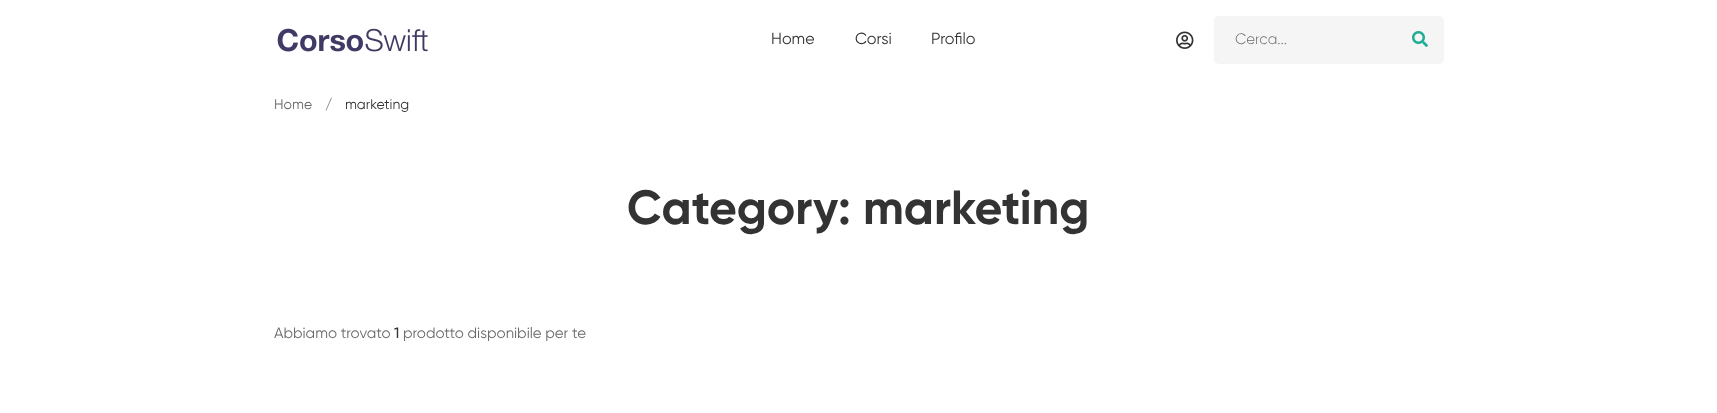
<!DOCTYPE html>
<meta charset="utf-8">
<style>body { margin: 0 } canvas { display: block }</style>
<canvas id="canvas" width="1717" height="413"></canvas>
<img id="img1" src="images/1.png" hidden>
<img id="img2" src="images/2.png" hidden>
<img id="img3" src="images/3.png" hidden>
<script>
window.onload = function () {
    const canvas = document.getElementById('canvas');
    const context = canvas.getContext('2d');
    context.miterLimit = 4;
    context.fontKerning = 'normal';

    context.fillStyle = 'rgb(255, 255, 255)';
    context.fillRect(0, 0, 1717, 413);
    context.drawImage(document.getElementById('img1'), 277, 28, 151, 24);
    context.drawImage(document.getElementById('img2'), 1176, 31, 18, 18);
    context.fillStyle = 'rgb(245, 245, 245)';
    context.beginPath();
    context.roundRect(1214, 16, 230, 48, 5);
    context.fill();
    context.drawImage(document.getElementById('img3'), 1412, 31, 16, 16);
    context.font = '16px Gilroy';
    context.fillStyle = 'rgb(51, 51, 51)';
    context.fillText('Home', 771, 44);
    context.fillText('Corsi', 855, 44);
    context.fillText('Profilo', 931, 44);
    context.font = '300 15px Gilroy';
    context.fillStyle = 'rgb(105, 105, 105)';
    context.fillText('Cerca...', 1235, 44);
    context.font = '14px Gilroy';
    context.fillText('Home', 274, 109);
    context.fillText('/', 325, 109);
    context.fillStyle = 'rgb(51, 51, 51)';
    context.fillText('marketing', 345, 109);
    context.font = 'bold 48px Gilroy';
    context.fillText('Category: marketing', 627, 224);
    context.font = '15px Gilroy';
    context.fillStyle = 'rgb(105, 105, 105)';
    context.fillText('Abbiamo trovato', 274, 338);
    context.font = '500 15px Gilroy';
    context.fillStyle = 'rgb(51, 51, 51)';
    context.fillText('1', 394, 338);
    context.font = '15px Gilroy';
    context.fillStyle = 'rgb(105, 105, 105)';
    context.fillText('prodotto disponibile per te', 403, 338);
};
</script>
